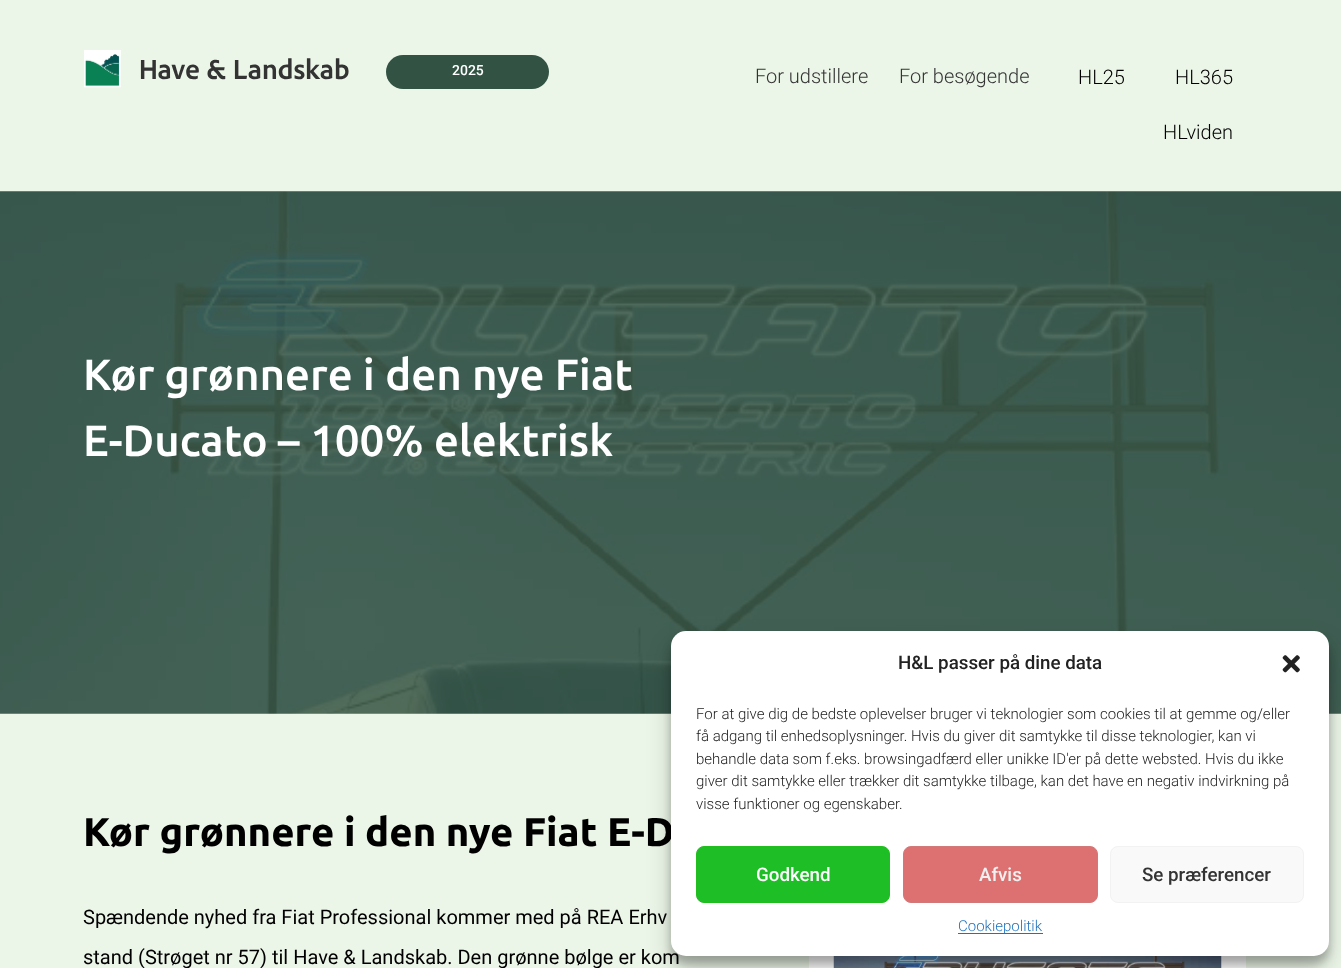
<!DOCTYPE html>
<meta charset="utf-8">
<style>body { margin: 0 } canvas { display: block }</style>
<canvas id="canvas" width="1341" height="968"></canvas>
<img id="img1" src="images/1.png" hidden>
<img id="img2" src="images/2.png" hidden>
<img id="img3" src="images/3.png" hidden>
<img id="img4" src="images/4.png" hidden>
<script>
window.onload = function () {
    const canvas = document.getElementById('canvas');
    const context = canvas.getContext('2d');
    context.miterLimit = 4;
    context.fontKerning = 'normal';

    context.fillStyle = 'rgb(236, 246, 232)';
    context.fillRect(0, 0, 1341, 968);
    context.drawImage(document.getElementById('img1'), 84, 50, 265, 38);
    context.fillStyle = 'rgb(50, 83, 67)';
    context.beginPath();
    context.roundRect(386, 55, 163, 34, 17);
    context.fill();
    context.drawImage(document.getElementById('img2'), 0, 191, 1341, 523);
    context.fillStyle = 'rgb(255, 255, 255)';
    context.fillRect(809, 956, 437, 12);
    context.drawImage(document.getElementById('img3'), 833, 956, 389, 12);
    context.fillStyle = 'rgba(0, 0, 0, 0.23)';
    context.filter = 'blur(4px)';
    context.beginPath();
    context.roundRect(671, 639, 658, 325, 15);
    context.fill();
    context.filter = 'none';
    context.fillStyle = 'rgba(0, 0, 0, 0.19)';
    context.filter = 'blur(12.5px)';
    context.beginPath();
    context.roundRect(671, 644, 658, 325, 15);
    context.fill();
    context.filter = 'none';
    context.font = '500 14px Roboto';
    context.fillStyle = 'rgb(255, 255, 255)';
    context.fillText('2025', 452, 75);
    context.font = '300 20px Roboto';
    context.fillStyle = 'rgb(51, 51, 51)';
    context.fillText('For udstillere', 755, 83);
    context.fillText('For besøgende', 899, 83);
    context.fillStyle = 'rgb(0, 0, 0)';
    context.fillText('HL25', 1078, 84);
    context.fillText('HL365', 1175, 84);
    context.fillText('HLviden', 1163, 139);
    context.font = '500 43.75px Ubuntu';
    context.fillStyle = 'rgb(255, 255, 255)';
    context.fillText('Kør grønnere i den nye Fiat', 83, 390);
    context.fillText('E-Ducato – 100% elektrisk', 83, 456);
    context.font = 'bold 40px Ubuntu';
    context.fillStyle = 'rgb(0, 0, 0)';
    context.fillText('Kør grønnere i den nye Fiat E-D', 83, 846);
    context.font = '20px Roboto';
    context.fillText('Spændende nyhed fra Fiat Professional kommer med på REA Erhv', 83, 924);
    context.fillText('stand (Strøget nr 57) til Have & Landskab. Den grønne bølge er kom', 83, 964);
    context.fillStyle = 'rgb(255, 255, 255)';
    context.beginPath();
    context.roundRect(671, 631, 658, 325, 15);
    context.fill();
    context.font = '500 18.75px Roboto';
    context.fillStyle = 'rgb(34, 34, 34)';
    context.fillText('H&L passer på dine data', 898, 669);
    context.drawImage(document.getElementById('img4'), 1282, 655, 18, 18);
    context.font = '300 15px Roboto';
    context.fillText('For at give dig de bedste oplevelser bruger vi teknologier som cookies til at gemme og/eller', 696, 719);
    context.fillText('få adgang til enhedsoplysninger. Hvis du giver dit samtykke til disse teknologier, kan vi', 696, 741);
    context.fillText('behandle data som f.eks. browsingadfærd eller unikke ID\'er på dette websted. Hvis du ikke', 696, 764);
    context.fillText('giver dit samtykke eller trækker dit samtykke tilbage, kan det have en negativ indvirkning på', 696, 786);
    context.fillText('visse funktioner og egenskaber.', 696, 809);
    context.fillStyle = 'rgb(30, 190, 38)';
    context.beginPath();
    context.roundRect(696.5, 846.5, 193, 56, 7.5);
    context.fill();
    context.strokeStyle = 'rgb(33, 190, 30)';
    context.stroke();
    context.font = '500 18.75px Roboto';
    context.fillStyle = 'rgb(255, 255, 255)';
    context.fillText('Godkend', 756, 881);
    context.fillStyle = 'rgb(221, 113, 113)';
    context.beginPath();
    context.roundRect(903.5, 846.5, 194, 56, 7.5);
    context.fill();
    context.strokeStyle = 'rgb(211, 120, 120)';
    context.stroke();
    context.fillStyle = 'rgb(240, 240, 240)';
    context.fillText('Afvis', 979, 881);
    context.fillStyle = 'rgb(249, 249, 249)';
    context.beginPath();
    context.roundRect(1110.5, 846.5, 193, 56, 7.5);
    context.fill();
    context.strokeStyle = 'rgb(242, 242, 242)';
    context.stroke();
    context.fillStyle = 'rgb(51, 51, 51)';
    context.fillText('Se præferencer', 1142, 881);
    context.fillStyle = 'rgb(30, 115, 190)';
    context.fillRect(958, 933, 85, 1);
    context.font = '300 15px Roboto';
    context.fillText('Cookiepolitik', 958, 931);
};
</script>
